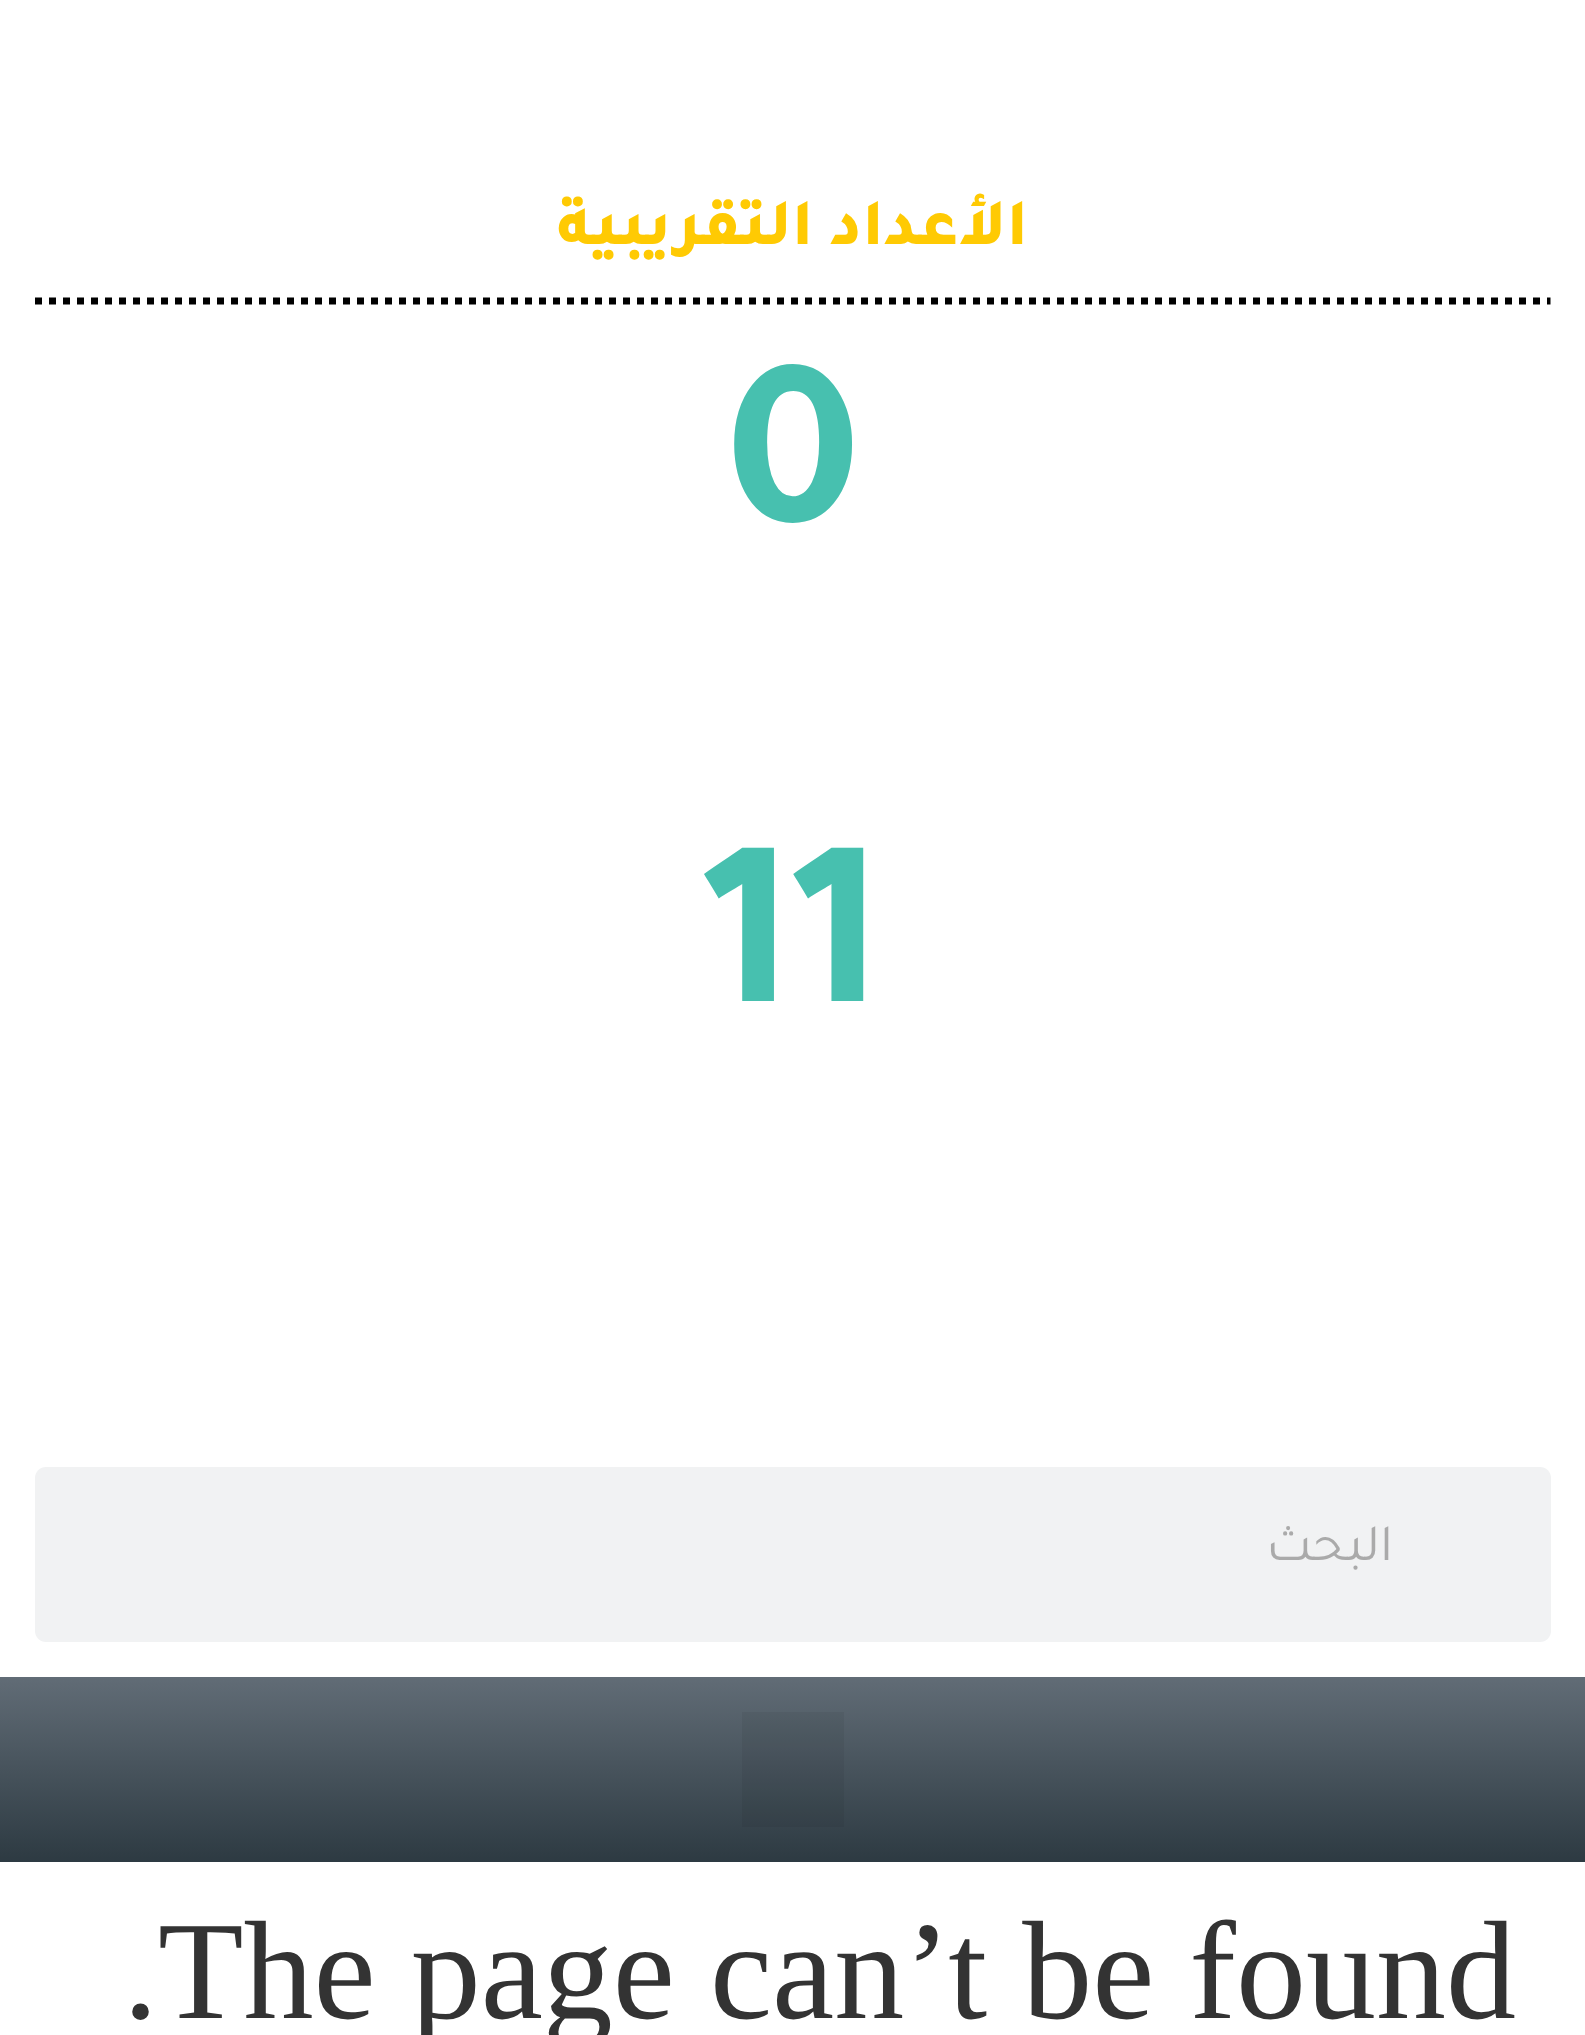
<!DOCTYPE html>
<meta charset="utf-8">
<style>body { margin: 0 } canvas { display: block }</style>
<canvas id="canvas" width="1585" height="2035"></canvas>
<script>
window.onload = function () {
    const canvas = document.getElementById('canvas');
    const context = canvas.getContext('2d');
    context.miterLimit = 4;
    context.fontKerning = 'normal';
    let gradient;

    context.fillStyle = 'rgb(255, 255, 255)';
    context.fillRect(0, 0, 1585, 2035);
    context.beginPath();
    context.moveTo(35, 301);
    context.lineTo(1550.5, 301);
    context.strokeStyle = 'rgb(0, 0, 0)';
    context.lineWidth = 7;
    context.setLineDash([7, 7]);
    context.stroke();
    context.fillStyle = 'rgb(241, 242, 243)';
    context.beginPath();
    context.roundRect(35, 1467, 1516, 175, 11);
    context.fill();
    gradient = context.createLinearGradient(793, 1677, 793, 1862);
    gradient.addColorStop(0, 'rgb(97, 108, 118)');
    gradient.addColorStop(1, 'rgb(45, 58, 66)');
    context.fillStyle = gradient;
    context.fillRect(0, 1677, 1585, 185);
    context.fillStyle = 'rgba(0, 0, 0, 0.05)';
    context.fillRect(742, 1712, 102, 115);
    context.direction = 'rtl';
    context.font = '800 66.5px Tajawal';
    context.fillStyle = 'rgb(255, 202, 3)';
    context.fillText('الأعداد التقريبية', 1028, 244);
    context.direction = 'ltr';
    context.font = 'bold 242px Tajawal';
    context.fillStyle = 'rgb(71, 192, 175)';
    context.fillText('0', 725, 520);
    context.fillText('11', 704, 1001);
    context.direction = 'rtl';
    context.font = '52.5px Tajawal';
    context.fillStyle = 'rgb(170, 170, 170)';
    context.fillText('البحث', 1393, 1560);
    context.direction = 'ltr';
    context.font = '140px Liberation Serif';
    context.fillStyle = 'rgb(51, 51, 51)';
    context.fillText('.The page can’t be found', 123, 2018);
};
</script>
